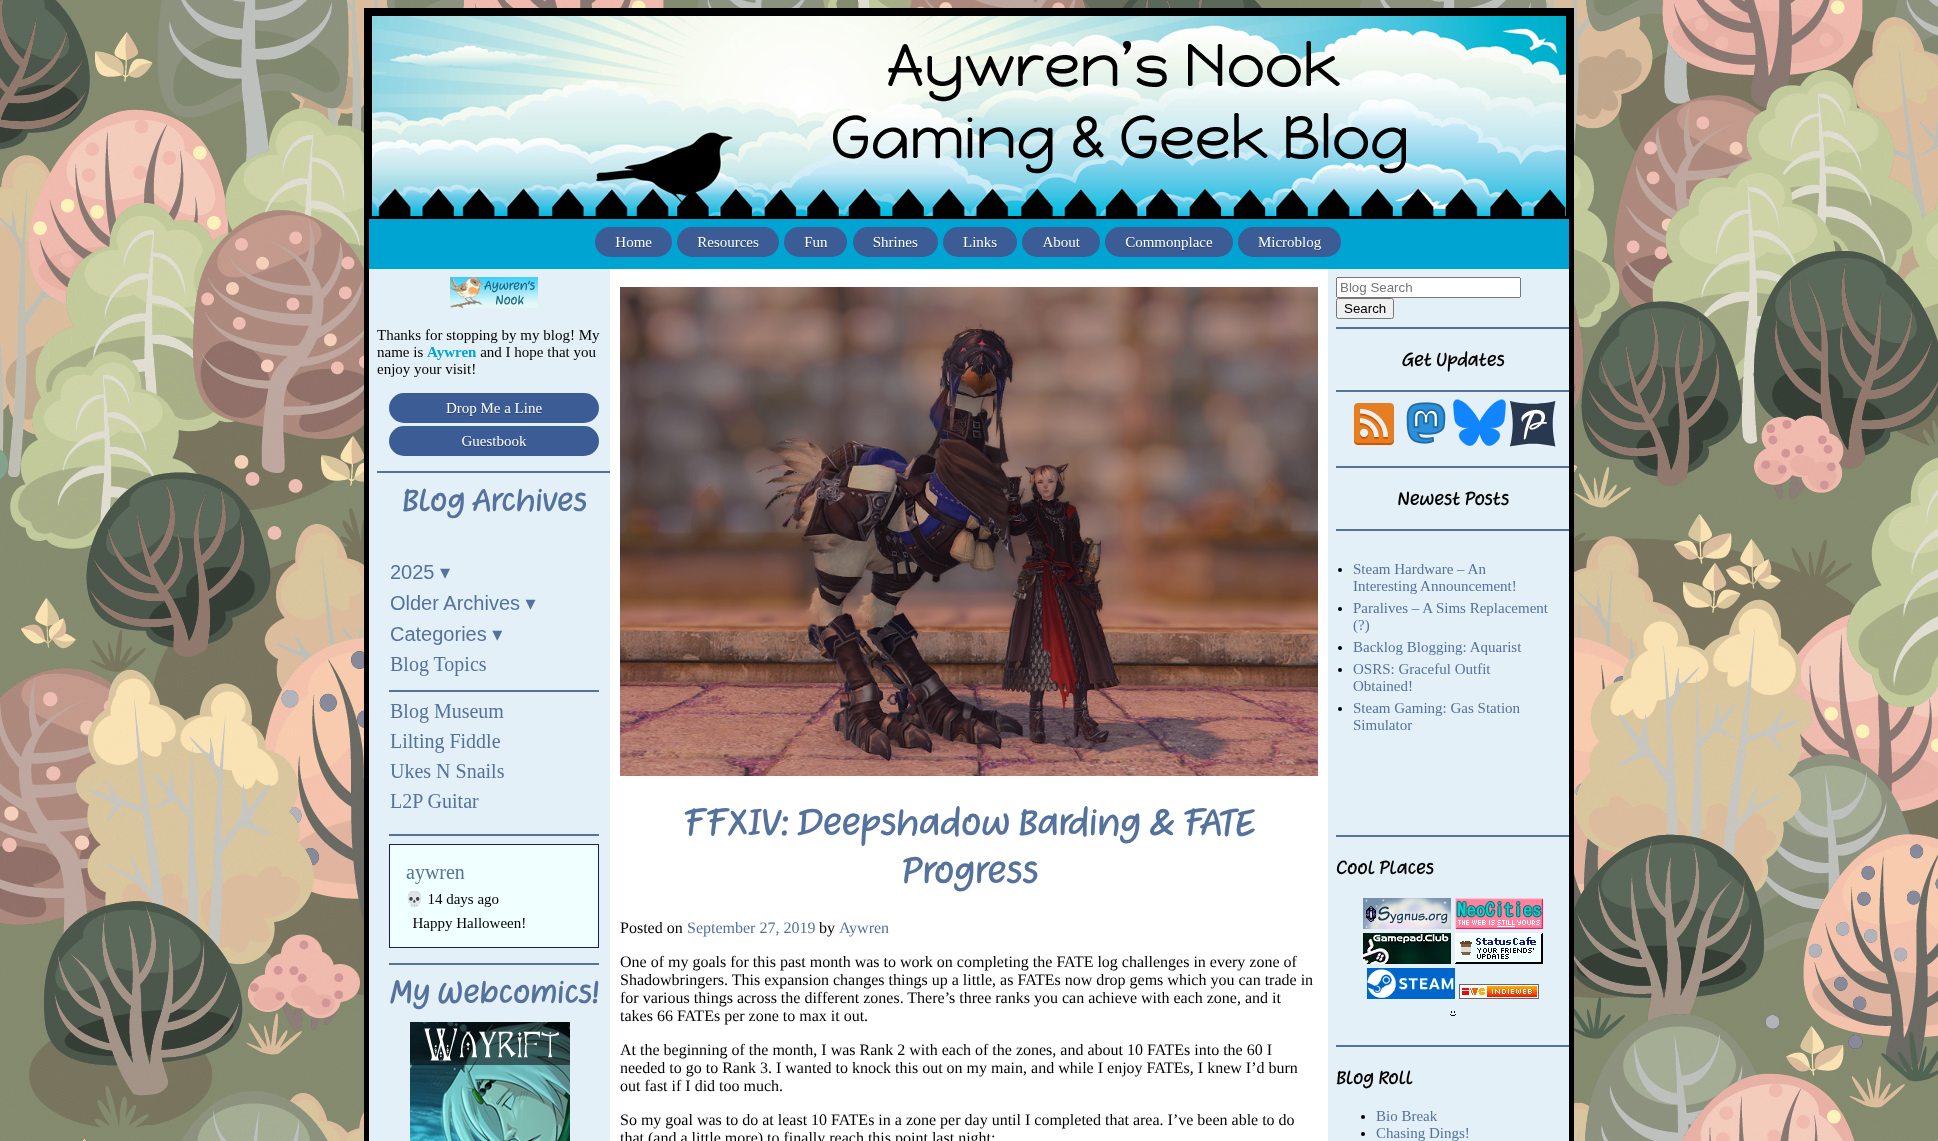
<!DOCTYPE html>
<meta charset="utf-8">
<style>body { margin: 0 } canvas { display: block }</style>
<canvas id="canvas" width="1938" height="1141"></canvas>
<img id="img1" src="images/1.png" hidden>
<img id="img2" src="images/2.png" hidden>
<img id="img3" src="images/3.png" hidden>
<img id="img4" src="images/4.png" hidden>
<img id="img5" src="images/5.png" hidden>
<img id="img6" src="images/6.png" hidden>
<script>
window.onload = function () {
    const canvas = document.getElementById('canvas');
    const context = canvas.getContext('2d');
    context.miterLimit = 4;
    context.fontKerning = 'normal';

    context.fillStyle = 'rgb(255, 255, 255)';
    context.fillRect(0, 0, 1938, 1141);
    context.drawImage(document.getElementById('img1'), 0, 0, 1938, 1141);
    context.fillRect(610, 269, 718, 872);
    context.strokeStyle = 'rgb(0, 0, 0)';
    context.lineWidth = 5;
    context.strokeRect(366.5, 10.5, 1205, 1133);
    context.drawImage(document.getElementById('img2'), 372, 16, 1194, 200);
    context.lineWidth = 3;
    context.strokeRect(370.5, 14.5, 1197, 203);
    context.drawImage(document.getElementById('img3'), 369, 219, 1200, 50);
    context.drawImage(document.getElementById('img4'), 369, 269, 241, 872);
    context.drawImage(document.getElementById('img5'), 620, 287, 698, 489);
    context.fillStyle = 'rgb(228, 240, 247)';
    context.fillRect(1328, 269, 241, 872);
    context.drawImage(document.getElementById('img6'), 1336, 277, 233, 864);
    context.font = '35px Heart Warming';
    context.fillStyle = 'rgb(84, 114, 156)';
    context.fillText('FFXIV: Deepshadow Barding & FATE', 683, 835);
    context.fillText('Progress', 901, 883);
    context.font = '16px Liberation Serif';
    context.fillStyle = 'rgb(0, 0, 0)';
    context.fillText('Posted on', 620, 933);
    context.fillStyle = 'rgb(84, 114, 156)';
    context.fillText('September 27, 2019', 687, 933);
    context.fillStyle = 'rgb(0, 0, 0)';
    context.fillText('by', 819, 933);
    context.fillStyle = 'rgb(84, 114, 156)';
    context.fillText('Aywren', 839, 933);
    context.fillStyle = 'rgb(0, 0, 0)';
    context.fillText('One of my goals for this past month was to work on completing the FATE log challenges in every zone of', 620, 967);
    context.fillText('Shadowbringers. This expansion changes things up a little, as FATEs now drop gems which you can trade in', 620, 985);
    context.fillText('for various things across the different zones. There’s three ranks you can achieve with each zone, and it', 620, 1003);
    context.fillText('takes 66 FATEs per zone to max it out.', 620, 1021);
    context.fillText('At the beginning of the month, I was Rank 2 with each of the zones, and about 10 FATEs into the 60 I', 620, 1055);
    context.fillText('needed to go to Rank 3. I wanted to knock this out on my main, and while I enjoy FATEs, I knew I’d burn', 620, 1073);
    context.fillText('out fast if I did too much.', 620, 1091);
    context.fillText('So my goal was to do at least 10 FATEs in a zone per day until I completed that area. I’ve been able to do', 620, 1125);
    context.fillText('that (and a little more) to finally reach this point last night:', 620, 1143);
};
</script>
